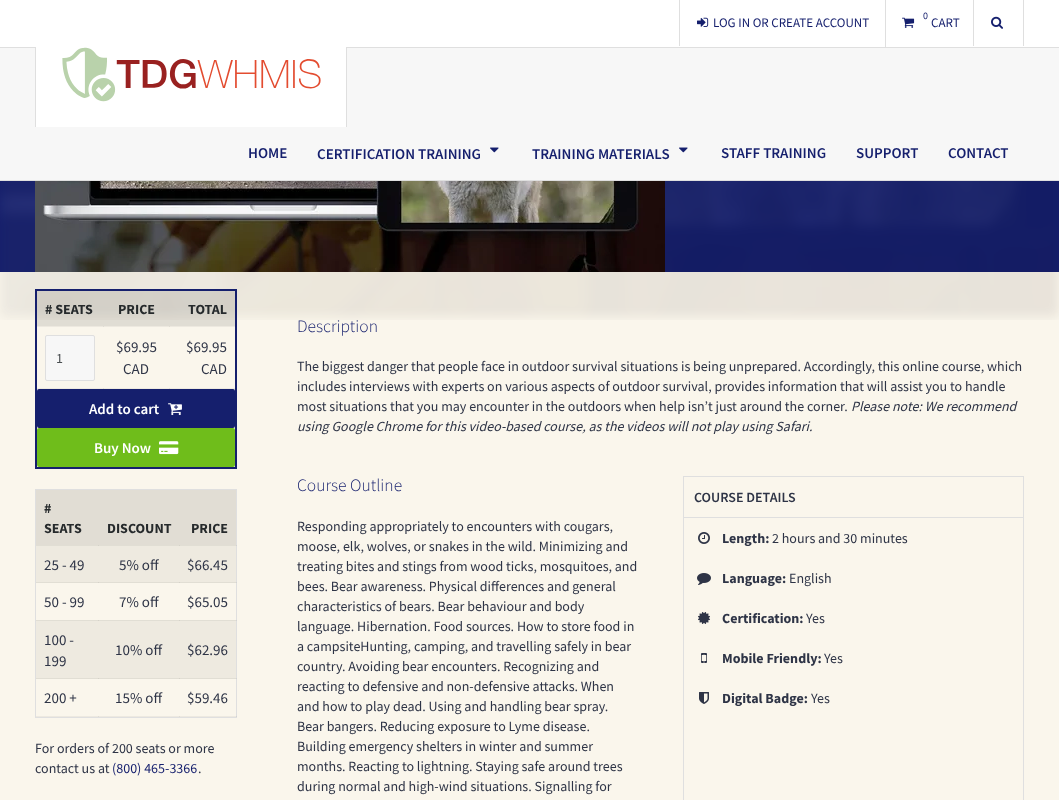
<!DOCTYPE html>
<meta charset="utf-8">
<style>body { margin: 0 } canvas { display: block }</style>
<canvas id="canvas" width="1059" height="800"></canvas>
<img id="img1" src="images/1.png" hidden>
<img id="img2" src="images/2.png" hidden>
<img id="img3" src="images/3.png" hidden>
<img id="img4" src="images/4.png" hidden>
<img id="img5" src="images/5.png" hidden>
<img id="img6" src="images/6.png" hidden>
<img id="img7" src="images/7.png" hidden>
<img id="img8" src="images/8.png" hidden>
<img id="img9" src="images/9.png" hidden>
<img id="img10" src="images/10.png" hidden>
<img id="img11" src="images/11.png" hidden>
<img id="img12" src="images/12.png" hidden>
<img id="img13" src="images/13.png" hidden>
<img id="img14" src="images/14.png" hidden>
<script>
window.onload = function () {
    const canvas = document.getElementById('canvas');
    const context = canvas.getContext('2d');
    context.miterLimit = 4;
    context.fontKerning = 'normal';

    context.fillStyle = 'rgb(250, 246, 236)';
    context.fillRect(0, 0, 1059, 800);
    context.fillStyle = 'rgb(255, 255, 255)';
    context.fillRect(0, 0, 1059, 47);
    context.fillStyle = 'rgb(223, 223, 223)';
    context.fillRect(0, 47, 1059, 1);
    context.fillRect(679, 0, 1, 46);
    context.drawImage(document.getElementById('img1'), 697, 17, 12, 10);
    context.fillRect(885, 0, 1, 47);
    context.drawImage(document.getElementById('img2'), 902, 17, 13, 11);
    context.fillRect(1023, 0, 1, 46);
    context.fillRect(973, 0, 1, 46);
    context.drawImage(document.getElementById('img3'), 991, 16, 12, 13);
    context.fillStyle = 'rgb(247, 247, 247)';
    context.fillRect(0, 48, 1059, 132);
    context.fillStyle = 'rgb(223, 223, 223)';
    context.fillRect(0, 180, 1059, 1);
    context.fillStyle = 'rgb(255, 255, 255)';
    context.fillRect(36, 47, 310, 80);
    context.fillStyle = 'rgb(223, 223, 223)';
    context.fillRect(346, 47, 1, 80);
    context.fillRect(35, 47, 1, 80);
    context.drawImage(document.getElementById('img4'), 62, 47, 259, 55);
    context.drawImage(document.getElementById('img5'), 490, 147, 9, 6);
    context.drawImage(document.getElementById('img5'), 679, 147, 9, 6);
    context.fillStyle = 'rgb(21, 31, 109)';
    context.fillRect(0, 181, 1059, 91);
    context.drawImage(document.getElementById('img6'), 0, 181, 1059, 139);
    context.drawImage(document.getElementById('img7'), 35, 181, 630, 91);
    context.strokeStyle = 'rgb(21, 31, 109)';
    context.lineWidth = 2;
    context.strokeRect(36, 290, 200, 178);
    context.fillStyle = 'rgba(0, 0, 0, 0.1)';
    context.fillRect(37, 291, 66, 35);
    context.fillStyle = 'rgba(0, 0, 0, 0.05)';
    context.fillRect(169, 326, 67, 1);
    context.fillRect(103, 326, 67, 1);
    context.fillRect(37, 326, 67, 1);
    context.fillStyle = 'rgba(0, 0, 0, 0.1)';
    context.fillRect(103, 291, 66, 35);
    context.fillRect(169, 291, 66, 35);
    context.fillStyle = 'rgba(0, 0, 0, 0.05)';
    context.fillRect(169, 388, 67, 1);
    context.fillRect(103, 388, 67, 1);
    context.fillRect(37, 388, 67, 1);
    context.fillStyle = 'rgb(247, 247, 247)';
    context.beginPath();
    context.roundRect(45.5, 335.5, 49, 45, 1.5);
    context.fill();
    context.strokeStyle = 'rgb(223, 223, 223)';
    context.lineWidth = 1;
    context.stroke();
    context.fillStyle = 'rgb(21, 31, 109)';
    context.beginPath();
    context.roundRect(37, 389, 198, 39, 2);
    context.fill();
    context.drawImage(document.getElementById('img8'), 168, 403, 14, 13);
    context.fillStyle = 'rgb(111, 189, 27)';
    context.beginPath();
    context.roundRect(37, 428, 198, 39, 2);
    context.fill();
    context.drawImage(document.getElementById('img9'), 159, 441, 20, 14);
    context.strokeRect(35.5, 489.5, 201, 228);
    context.fillStyle = 'rgb(225, 221, 212)';
    context.fillRect(36, 490, 200, 55);
    context.fillStyle = 'rgb(238, 234, 224)';
    context.fillRect(36, 545, 200, 38);
    context.fillStyle = 'rgba(0, 0, 0, 0.05)';
    context.fillRect(179, 545, 58, 1);
    context.fillRect(98, 545, 82, 1);
    context.fillRect(36, 545, 63, 1);
    context.fillRect(179, 582, 58, 1);
    context.fillRect(98, 582, 82, 1);
    context.fillRect(36, 582, 63, 1);
    context.fillStyle = 'rgb(238, 234, 224)';
    context.fillRect(36, 620, 200, 59);
    context.fillStyle = 'rgba(0, 0, 0, 0.05)';
    context.fillRect(179, 620, 58, 1);
    context.fillRect(98, 620, 82, 1);
    context.fillRect(36, 620, 63, 1);
    context.fillRect(179, 678, 58, 1);
    context.fillRect(98, 678, 82, 1);
    context.fillRect(36, 678, 63, 1);
    context.fillRect(179, 716, 58, 1);
    context.fillRect(98, 716, 82, 1);
    context.fillRect(36, 716, 63, 1);
    context.strokeRect(683.5, 476.5, 340, 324);
    context.fillStyle = 'rgb(223, 223, 223)';
    context.fillRect(684, 517, 339, 1);
    context.drawImage(document.getElementById('img10'), 698, 532, 12, 12);
    context.drawImage(document.getElementById('img11'), 697, 573, 14, 12);
    context.drawImage(document.getElementById('img12'), 698, 612, 12, 12);
    context.drawImage(document.getElementById('img13'), 701, 653, 6, 10);
    context.drawImage(document.getElementById('img14'), 699, 692, 10, 12);
    context.font = '13px Source Sans Pro';
    context.fillStyle = 'rgb(21, 31, 109)';
    context.fillText('LOG IN OR CREATE ACCOUNT', 713, 27);
    context.font = '10px Source Sans Pro';
    context.fillText('0', 923, 19);
    context.font = '13px Source Sans Pro';
    context.fillText('CART', 931, 27);
    context.font = '600 15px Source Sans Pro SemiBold';
    context.fillText('HOME', 248, 158);
    context.fillText('CERTIFICATION TRAINING', 317, 159);
    context.fillText('TRAINING MATERIALS', 532, 159);
    context.fillText('STAFF TRAINING', 721, 158);
    context.fillText('SUPPORT', 856, 158);
    context.fillText('CONTACT', 948, 158);
    context.font = 'bold 14px Source Sans Pro';
    context.fillStyle = 'rgb(38, 42, 44)';
    context.fillText('# SEATS', 45, 314);
    context.fillText('PRICE', 118, 314);
    context.fillText('TOTAL', 188, 314);
    context.font = '14px Source Sans Pro';
    context.fillStyle = 'rgb(74, 79, 81)';
    context.fillText('1', 56, 363);
    context.font = '15px Source Sans Pro';
    context.fillStyle = 'rgb(46, 52, 70)';
    context.fillText('$69.95', 116, 352);
    context.fillText('CAD', 123, 374);
    context.fillText('$69.95', 186, 352);
    context.fillText('CAD', 201, 374);
    context.font = '600 15px Source Sans Pro SemiBold';
    context.fillStyle = 'rgb(255, 255, 255)';
    context.fillText('Add to cart', 89, 414);
    context.fillText('Buy Now', 94, 453);
    context.font = 'bold 14px Source Sans Pro';
    context.fillStyle = 'rgb(38, 42, 44)';
    context.fillText('#', 44, 513);
    context.fillText('SEATS', 44, 533);
    context.fillText('DISCOUNT', 107, 533);
    context.fillText('PRICE', 191, 533);
    context.font = '15px Source Sans Pro';
    context.fillStyle = 'rgb(46, 52, 70)';
    context.fillText('25 - 49', 44, 570);
    context.fillText('5% off', 119, 570);
    context.fillText('$66.45', 187, 570);
    context.fillText('50 - 99', 44, 607);
    context.fillText('7% off', 119, 607);
    context.fillText('$65.05', 187, 607);
    context.fillText('100 -', 44, 645);
    context.fillText('199', 44, 666);
    context.fillText('10% off', 115, 655);
    context.fillText('$62.96', 187, 655);
    context.fillText('200 +', 44, 703);
    context.fillText('15% off', 115, 703);
    context.fillText('$59.46', 187, 703);
    context.font = '14px Source Sans Pro';
    context.fillText('For orders of 200 seats or more', 35, 753);
    context.fillText('contact us at', 35, 773);
    context.fillStyle = 'rgb(21, 31, 109)';
    context.fillText('(800) 465-3366', 112, 773);
    context.fillStyle = 'rgb(46, 52, 70)';
    context.fillText('.', 198, 773);
    context.font = '300 17.5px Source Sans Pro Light';
    context.fillStyle = 'rgb(21, 31, 109)';
    context.fillText('Description', 297, 332);
    context.font = '14px Source Sans Pro';
    context.fillStyle = 'rgb(46, 52, 70)';
    context.fillText('The biggest danger that people face in outdoor survival situations is being unprepared. Accordingly, this online course, which', 297, 371);
    context.fillText('includes interviews with experts on various aspects of outdoor survival, provides information that will assist you to handle', 297, 391);
    context.fillText('most situations that you may encounter in the outdoors when help isn’t just around the corner.', 297, 411);
    context.font = 'italic 14px Source Sans Pro';
    context.fillText('Please note: We recommend', 851, 411);
    context.fillText('using Google Chrome for this video-based course, as the videos will not play using Safari.', 297, 431);
    context.font = '300 17.5px Source Sans Pro Light';
    context.fillStyle = 'rgb(21, 31, 109)';
    context.fillText('Course Outline', 297, 491);
    context.font = '14px Source Sans Pro';
    context.fillStyle = 'rgb(46, 52, 70)';
    context.fillText('Responding appropriately to encounters with cougars,', 297, 531);
    context.fillText('moose, elk, wolves, or snakes in the wild. Minimizing and', 297, 551);
    context.fillText('treating bites and stings from wood ticks, mosquitoes, and', 297, 571);
    context.fillText('bees. Bear awareness. Physical differences and general', 297, 591);
    context.fillText('characteristics of bears. Bear behaviour and body', 297, 611);
    context.fillText('language. Hibernation. Food sources. How to store food in', 297, 631);
    context.fillText('a campsiteHunting, camping, and travelling safely in bear', 297, 651);
    context.fillText('country. Avoiding bear encounters. Recognizing and', 297, 671);
    context.fillText('reacting to defensive and non-defensive attacks. When', 297, 691);
    context.fillText('and how to play dead. Using and handling bear spray.', 297, 711);
    context.fillText('Bear bangers. Reducing exposure to Lyme disease.', 297, 731);
    context.fillText('Building emergency shelters in winter and summer', 297, 751);
    context.fillText('months. Reacting to lightning. Staying safe around trees', 297, 771);
    context.fillText('during normal and high-wind situations. Signalling for', 297, 791);
    context.font = '600 14px Source Sans Pro SemiBold';
    context.fillText('COURSE DETAILS', 694, 502);
    context.font = 'bold 14px Source Sans Pro';
    context.fillText('Length:', 722, 543);
    context.font = '14px Source Sans Pro';
    context.fillText('2 hours and 30 minutes', 772, 543);
    context.font = 'bold 14px Source Sans Pro';
    context.fillText('Language:', 722, 583);
    context.font = '14px Source Sans Pro';
    context.fillText('English', 789, 583);
    context.font = 'bold 14px Source Sans Pro';
    context.fillText('Certification:', 722, 623);
    context.font = '14px Source Sans Pro';
    context.fillText('Yes', 806, 623);
    context.font = 'bold 14px Source Sans Pro';
    context.fillText('Mobile Friendly:', 722, 663);
    context.font = '14px Source Sans Pro';
    context.fillText('Yes', 824, 663);
    context.font = 'bold 14px Source Sans Pro';
    context.fillText('Digital Badge:', 722, 703);
    context.font = '14px Source Sans Pro';
    context.fillText('Yes', 811, 703);
};
</script>
